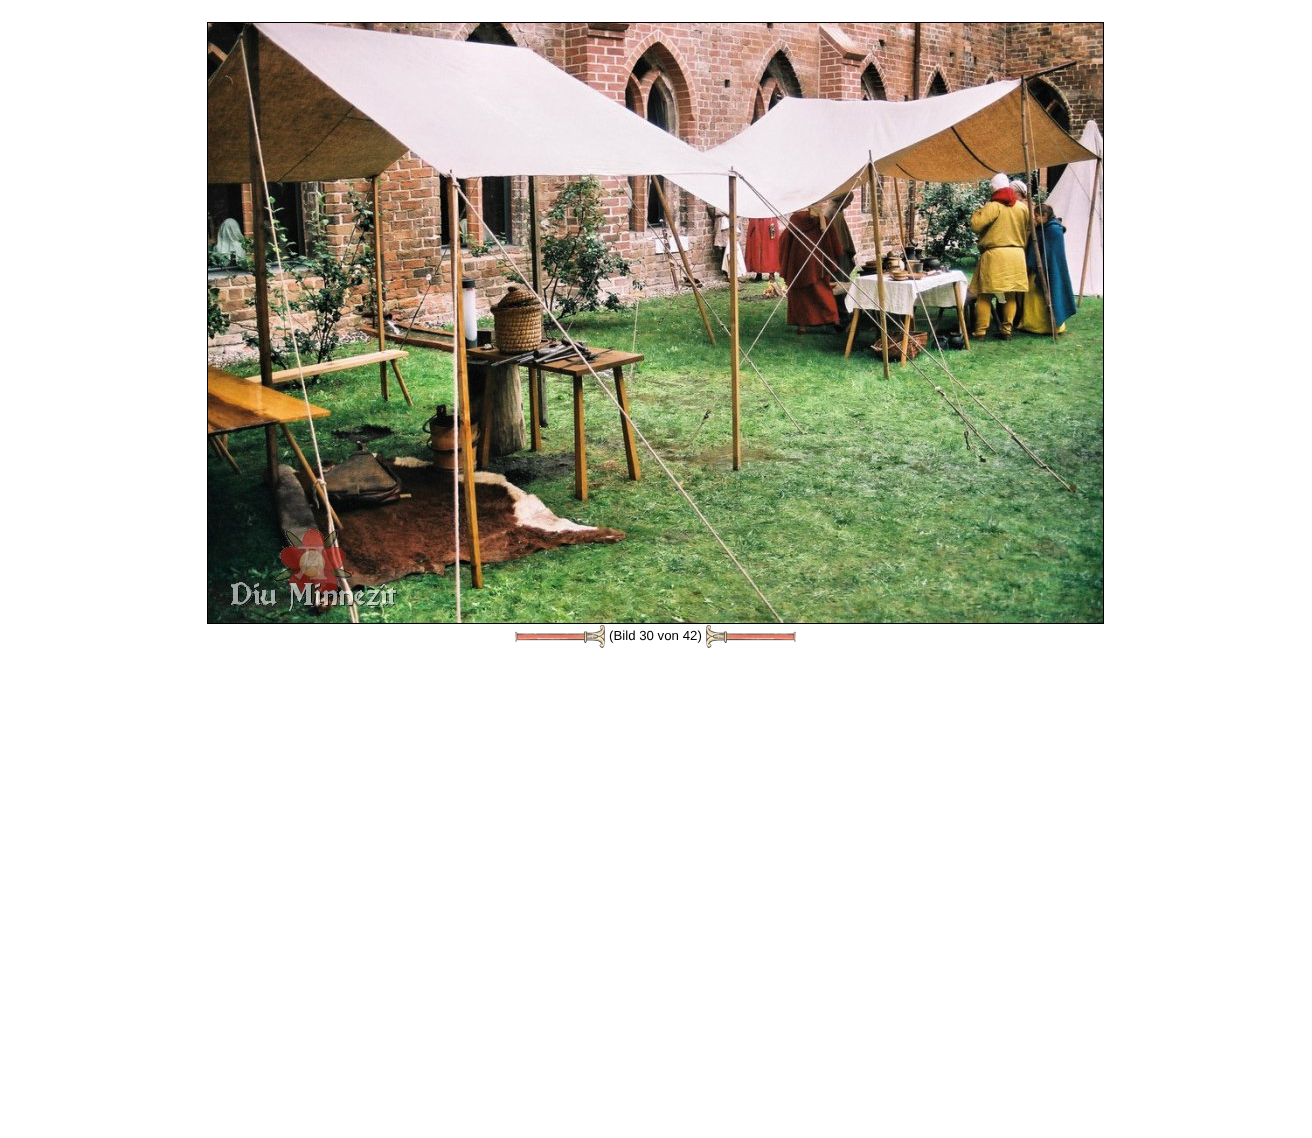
<!DOCTYPE html>
<meta charset="utf-8">
<style>body { margin: 0 } canvas { display: block }</style>
<canvas id="canvas" width="1312" height="1138"></canvas>
<img id="img1" src="images/1.png" hidden>
<img id="img2" src="images/2.png" hidden>
<img id="img3" src="images/3.png" hidden>
<script>
window.onload = function () {
    const canvas = document.getElementById('canvas');
    const context = canvas.getContext('2d');
    context.miterLimit = 4;
    context.fontKerning = 'normal';

    context.fillStyle = 'rgb(255, 255, 255)';
    context.fillRect(0, 0, 1312, 1138);
    context.strokeStyle = 'rgb(0, 0, 0)';
    context.strokeRect(207.5, 22.5, 896, 601);
    context.drawImage(document.getElementById('img1'), 208, 23, 895, 600);
    context.drawImage(document.getElementById('img2'), 515, 625, 90, 23);
    context.drawImage(document.getElementById('img3'), 706, 625, 90, 23);
    context.font = '13.25px Liberation Sans';
    context.fillStyle = 'rgb(0, 0, 0)';
    context.fillText('(Bild 30 von 42)', 609, 640);
};
</script>
